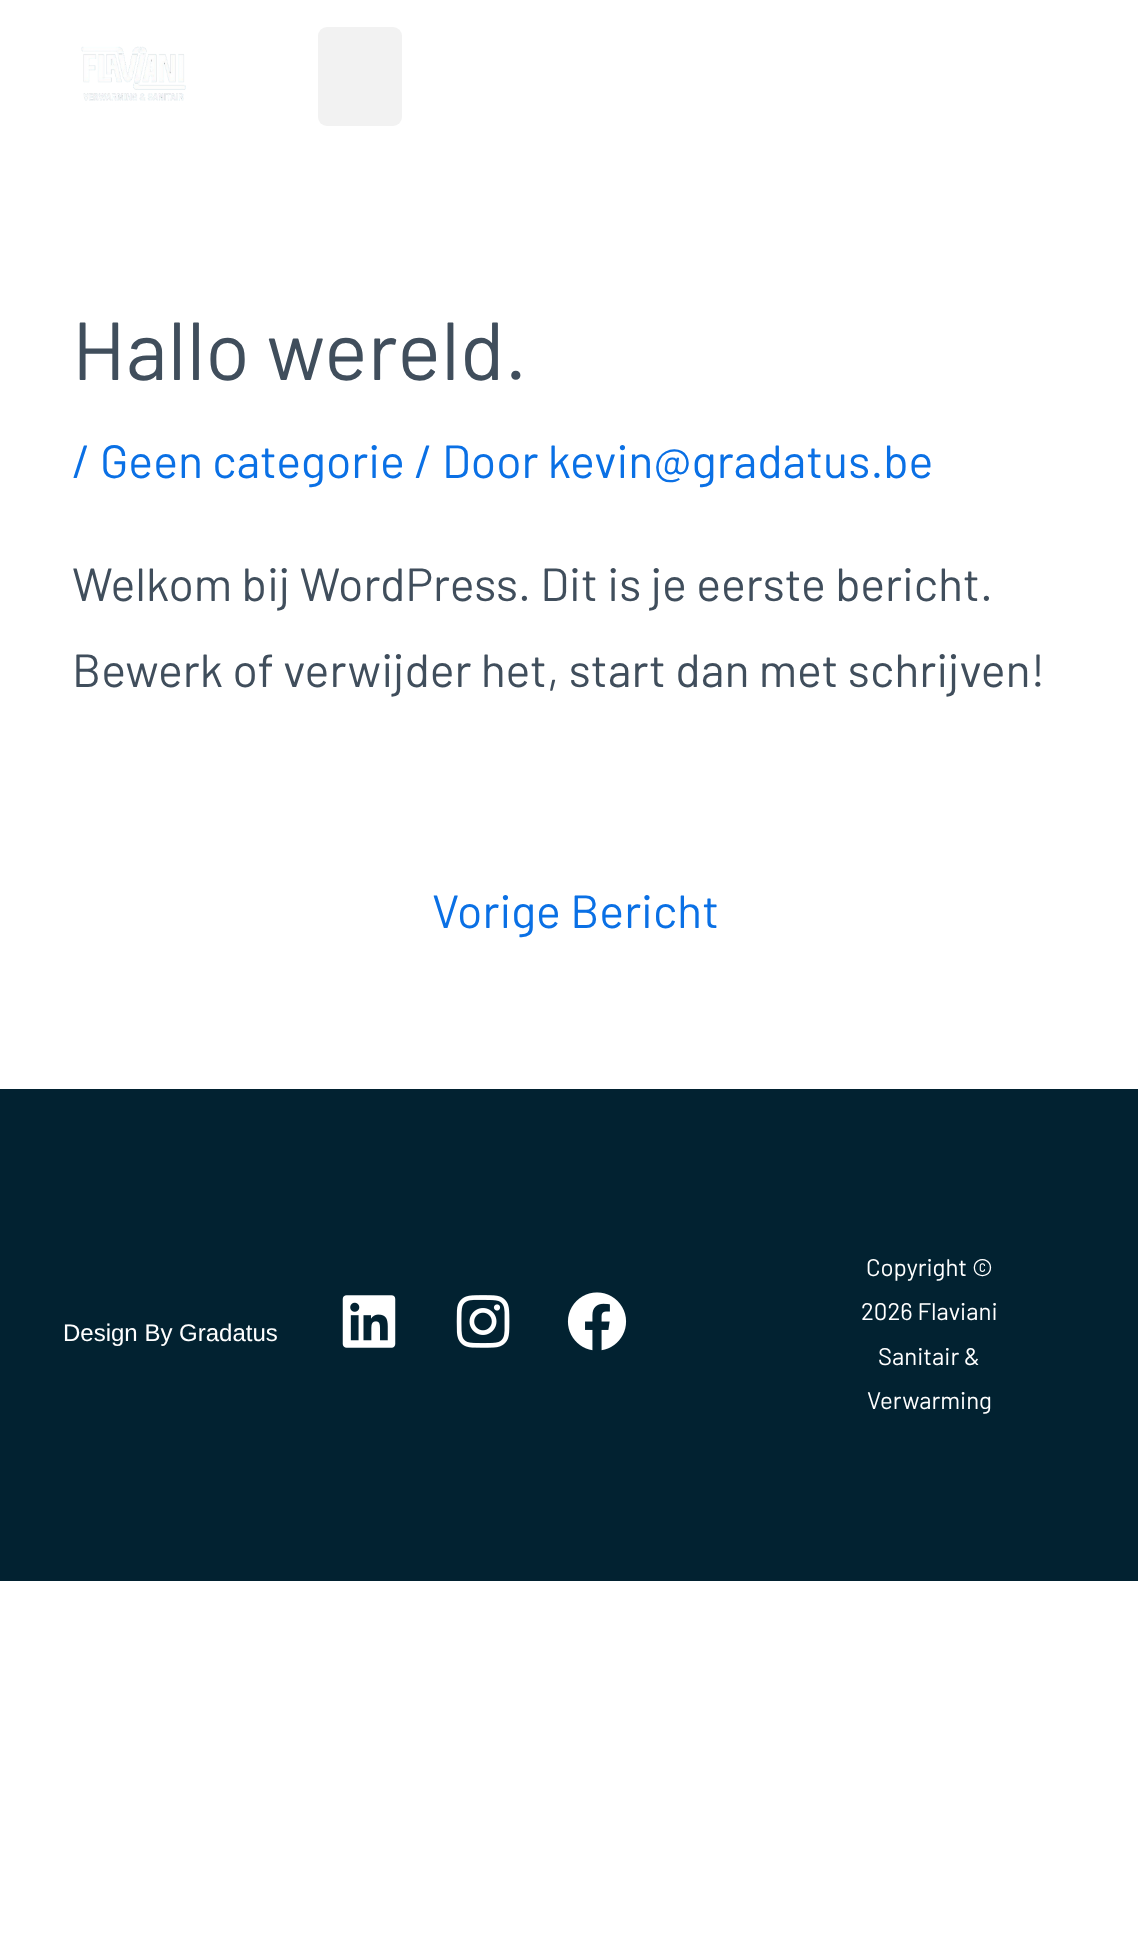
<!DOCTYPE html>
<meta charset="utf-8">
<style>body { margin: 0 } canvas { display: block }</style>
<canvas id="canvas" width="1138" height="1942"></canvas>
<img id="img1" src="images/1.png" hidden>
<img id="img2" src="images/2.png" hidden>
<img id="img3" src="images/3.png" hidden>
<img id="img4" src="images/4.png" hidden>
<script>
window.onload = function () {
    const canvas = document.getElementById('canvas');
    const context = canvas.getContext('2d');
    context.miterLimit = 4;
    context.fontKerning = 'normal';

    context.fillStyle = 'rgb(255, 255, 255)';
    context.fillRect(0, 0, 1138, 1942);
    context.drawImage(document.getElementById('img1'), 81, 46, 105, 55);
    context.fillStyle = 'rgb(242, 242, 242)';
    context.beginPath();
    context.roundRect(318, 27, 84, 99, 9);
    context.fill();
    context.fillStyle = 'rgb(2, 34, 49)';
    context.fillRect(0, 1089, 1138, 492);
    context.drawImage(document.getElementById('img2'), 342, 1295, 54, 53);
    context.drawImage(document.getElementById('img3'), 456, 1295, 54, 53);
    context.drawImage(document.getElementById('img4'), 567, 1292, 60, 59);
    context.font = '82px Barlow';
    context.fillStyle = 'rgb(64, 78, 92)';
    context.fillText('Hallo wereld.', 72, 380);
    context.font = '46.5px Barlow';
    context.fillStyle = 'rgb(10, 112, 229)';
    context.fillText('/ Geen categorie / Door kevin@gradatus.be', 72, 478);
    context.fillStyle = 'rgb(64, 78, 92)';
    context.fillText('Welkom bij WordPress. Dit is je eerste bericht.', 72, 601);
    context.fillText('Bewerk of verwijder het, start dan met schrijven!', 72, 687);
    context.fillStyle = 'rgb(10, 112, 229)';
    context.fillText('Vorige Bericht', 432, 928);
    context.font = '24px Liberation Sans';
    context.fillStyle = 'rgb(255, 255, 255)';
    context.fillText('Design By Gradatus', 63, 1341);
    context.font = '24px Barlow';
    context.fillText('Copyright ©', 866, 1276);
    context.fillText('2026 Flaviani', 861, 1320);
    context.fillText('Sanitair &', 878, 1365);
    context.fillText('Verwarming', 867, 1409);
};
</script>
